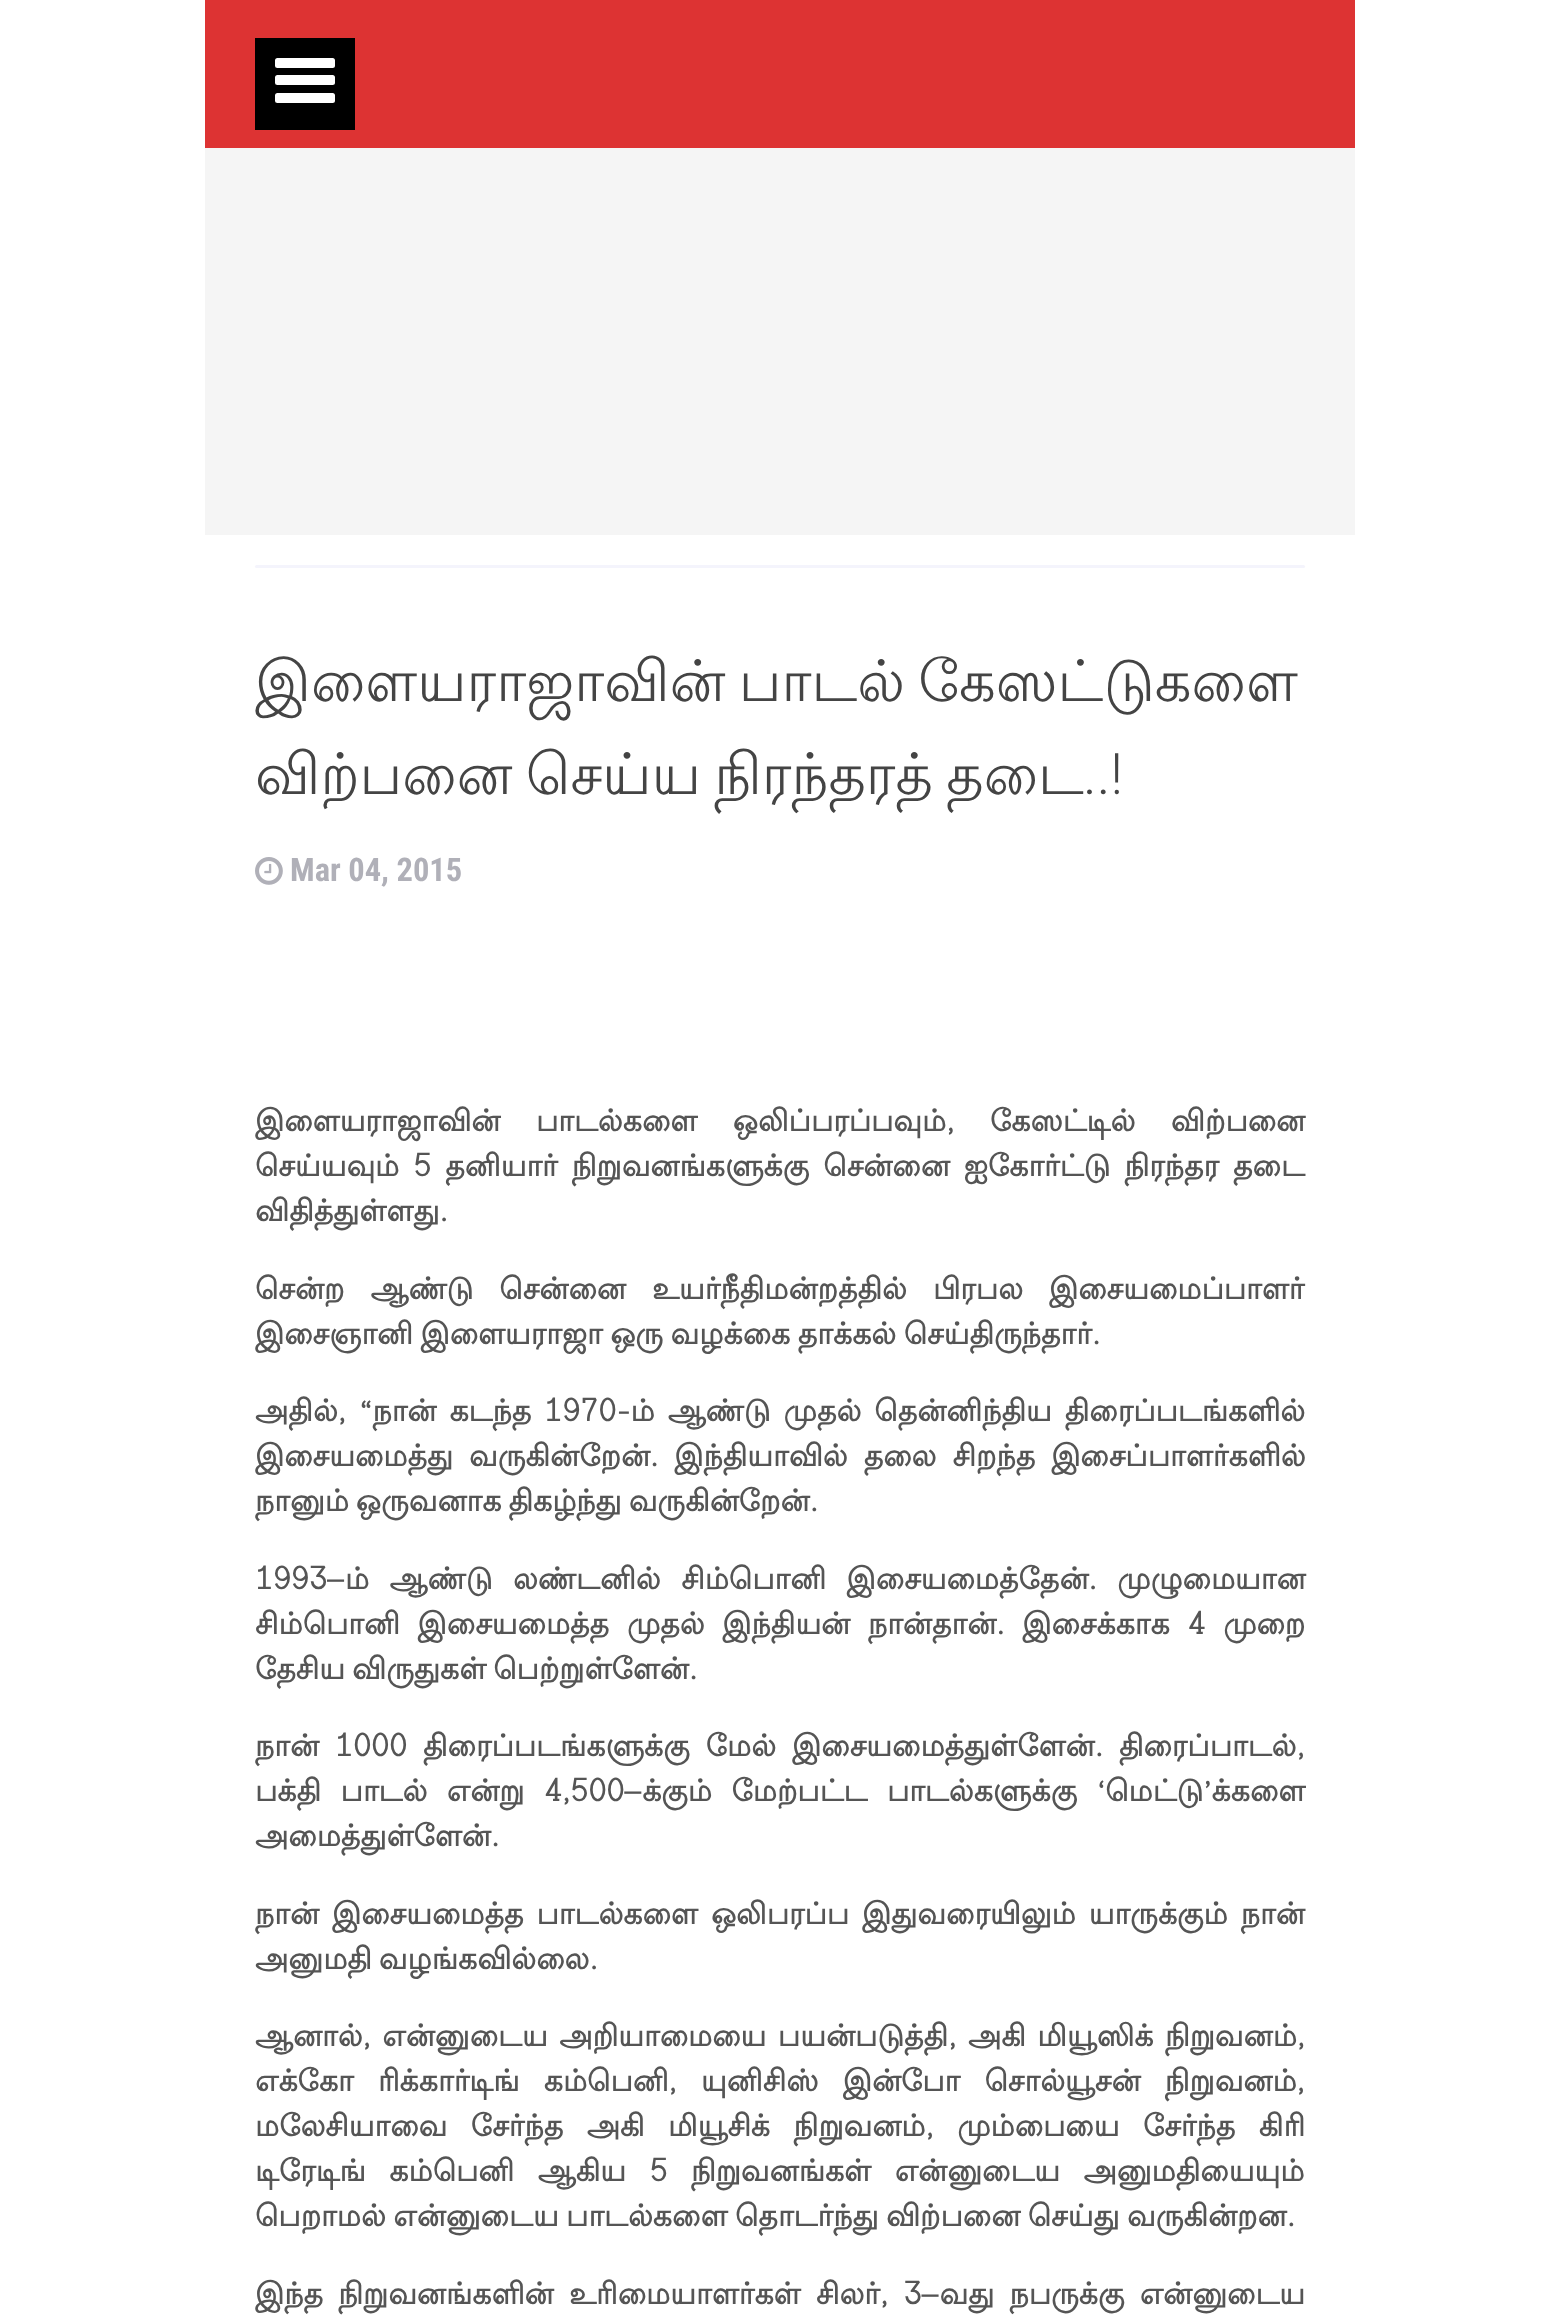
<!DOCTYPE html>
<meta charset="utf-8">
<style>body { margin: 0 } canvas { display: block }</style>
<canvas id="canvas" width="1559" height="2324"></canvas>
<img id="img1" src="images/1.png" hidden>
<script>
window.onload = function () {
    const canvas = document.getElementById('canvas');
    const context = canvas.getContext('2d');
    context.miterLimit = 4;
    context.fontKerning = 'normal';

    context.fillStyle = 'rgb(255, 255, 255)';
    context.fillRect(0, 0, 1559, 2324);
    context.fillStyle = 'rgb(221, 51, 51)';
    context.fillRect(205, 0, 1150, 148);
    context.fillStyle = 'rgb(0, 0, 0)';
    context.fillRect(255, 38, 100, 92);
    context.fillStyle = 'rgb(255, 255, 255)';
    context.beginPath();
    context.roundRect(275, 58, 60, 10, 2.5);
    context.fill();
    context.beginPath();
    context.roundRect(275, 75, 60, 10, 2.5);
    context.fill();
    context.beginPath();
    context.roundRect(275, 93, 60, 10, 2.5);
    context.fill();
    context.fillStyle = 'rgb(245, 245, 245)';
    context.fillRect(205, 148, 1150, 387);
    context.fillStyle = 'rgb(244, 244, 252)';
    context.beginPath();
    context.roundRect(255, 565, 1050, 3, 1.5);
    context.fill();
    context.drawImage(document.getElementById('img1'), 255, 857, 28, 28);
    context.wordSpacing = '-4px';
    context.font = '57.5px Lohit Tamil';
    context.fillStyle = 'rgb(68, 68, 68)';
    context.fillText('இளையராஜாவின் பாடல் கேஸட்டுகளை', 255, 701);
    context.fillText('விற்பனை செய்ய நிரந்தரத் தடை', 255, 794);
    context.wordSpacing = '0px';
    context.font = '300 57.5px Roboto Condensed';
    context.fillText('..!', 1083, 794);
    context.font = 'bold 32.5px Roboto Condensed';
    context.fillStyle = 'rgb(176, 176, 184)';
    context.fillText('Mar 04, 2015', 290, 881);
    context.wordSpacing = '26.5px';
    context.font = 'bold 30px Lohit Tamil';
    context.fillStyle = 'rgb(85, 85, 85)';
    context.fillText('இளையராஜாவின் பாடல்களை ஒலிப்பரப்பவும், கேஸட்டில் விற்பனை', 255, 1131);
    context.wordSpacing = '5px';
    context.fillText('செய்யவும் 5 தனியார் நிறுவனங்களுக்கு சென்னை ஐகோர்ட்டு நிரந்தர தடை', 255, 1176);
    context.wordSpacing = '0px';
    context.fillText('விதித்துள்ளது.', 255, 1221);
    context.wordSpacing = '17px';
    context.fillText('சென்ற ஆண்டு சென்னை உயர்நீதிமன்றத்தில் பிரபல இசையமைப்பாளர்', 255, 1299);
    context.wordSpacing = '-1.5px';
    context.fillText('இசைஞானி இளையராஜா ஒரு வழக்கை தாக்கல் செய்திருந்தார்.', 255, 1344);
    context.wordSpacing = '4px';
    context.fillText('அதில், “நான் கடந்த 1970-ம் ஆண்டு முதல் தென்னிந்திய திரைப்படங்களில்', 255, 1421);
    context.wordSpacing = '7px';
    context.fillText('இசையமைத்து வருகின்றேன். இந்தியாவில் தலை சிறந்த இசைப்பாளர்களில்', 255, 1466);
    context.wordSpacing = '-2px';
    context.fillText('நானும் ஒருவனாக திகழ்ந்து வருகின்றேன்.', 255, 1511);
    context.wordSpacing = '11.5px';
    context.fillText('1993–ம் ஆண்டு லண்டனில் சிம்பொனி இசையமைத்தேன். முழுமையான', 255, 1589);
    context.wordSpacing = '8.75px';
    context.fillText('சிம்பொனி இசையமைத்த முதல் இந்தியன் நான்தான். இசைக்காக 4 முறை', 255, 1634);
    context.wordSpacing = '-2px';
    context.fillText('தேசிய விருதுகள் பெற்றுள்ளேன்.', 255, 1679);
    context.wordSpacing = '7px';
    context.fillText('நான் 1000 திரைப்படங்களுக்கு மேல் இசையமைத்துள்ளேன். திரைப்பாடல்,', 255, 1756);
    context.wordSpacing = '10.5px';
    context.fillText('பக்தி பாடல் என்று 4,500–க்கும் மேற்பட்ட பாடல்களுக்கு ‘மெட்டு’க்களை', 255, 1801);
    context.wordSpacing = '0px';
    context.fillText('அமைத்துள்ளேன்.', 255, 1846);
    context.wordSpacing = '4px';
    context.fillText('நான் இசையமைத்த பாடல்களை ஒலிபரப்ப இதுவரையிலும் யாருக்கும் நான்', 255, 1924);
    context.wordSpacing = '-2px';
    context.fillText('அனுமதி வழங்கவில்லை.', 255, 1969);
    context.wordSpacing = '2.5px';
    context.fillText('ஆனால், என்னுடைய அறியாமையை பயன்படுத்தி, அகி மியூஸிக் நிறுவனம்,', 255, 2046);
    context.wordSpacing = '15.25px';
    context.fillText('எக்கோ ரிக்கார்டிங் கம்பெனி, யுனிசிஸ் இன்போ சொல்யூசன் நிறுவனம்,', 255, 2091);
    context.wordSpacing = '14.5px';
    context.fillText('மலேசியாவை சேர்ந்த அகி மியூசிக் நிறுவனம், மும்பையை சேர்ந்த கிரி', 255, 2136);
    context.fillText('டிரேடிங் கம்பெனி ஆகிய 5 நிறுவனங்கள் என்னுடைய அனுமதியையும்', 255, 2181);
    context.wordSpacing = '-1.5px';
    context.fillText('பெறாமல் என்னுடைய பாடல்களை தொடர்ந்து விற்பனை செய்து வருகின்றன.', 255, 2226);
    context.wordSpacing = '6.25px';
    context.fillText('இந்த நிறுவனங்களின் உரிமையாளர்கள் சிலர், 3–வது நபருக்கு என்னுடைய', 255, 2304);
};
</script>
